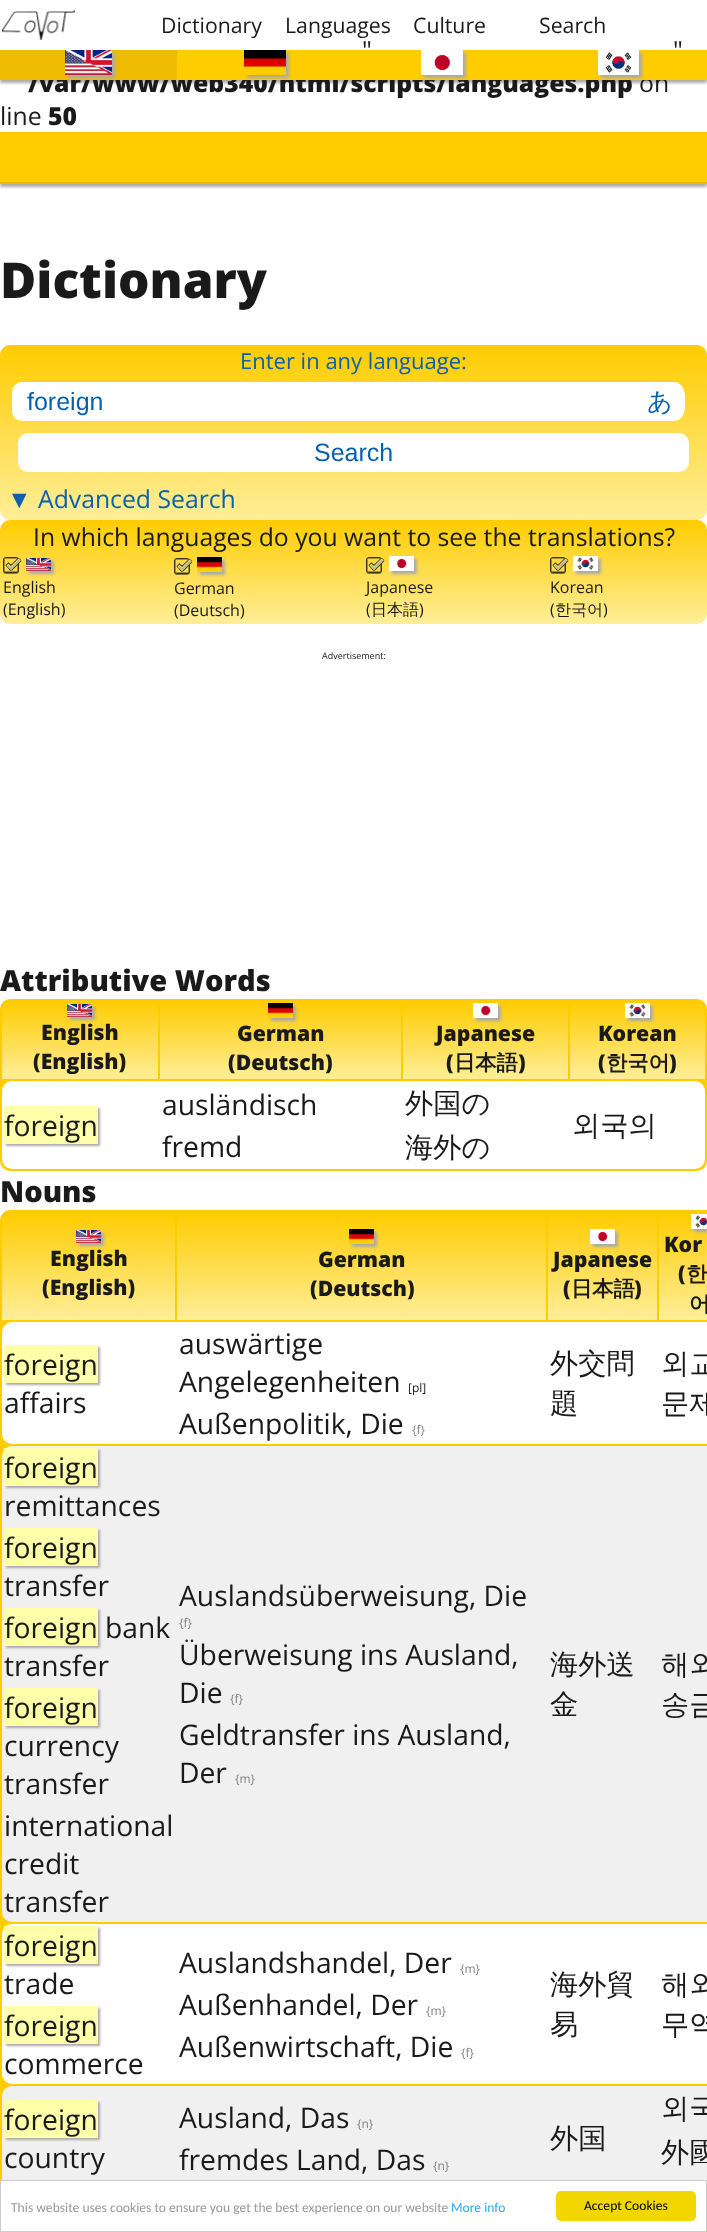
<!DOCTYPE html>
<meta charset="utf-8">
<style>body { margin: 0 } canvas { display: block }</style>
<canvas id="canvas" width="707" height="2232"></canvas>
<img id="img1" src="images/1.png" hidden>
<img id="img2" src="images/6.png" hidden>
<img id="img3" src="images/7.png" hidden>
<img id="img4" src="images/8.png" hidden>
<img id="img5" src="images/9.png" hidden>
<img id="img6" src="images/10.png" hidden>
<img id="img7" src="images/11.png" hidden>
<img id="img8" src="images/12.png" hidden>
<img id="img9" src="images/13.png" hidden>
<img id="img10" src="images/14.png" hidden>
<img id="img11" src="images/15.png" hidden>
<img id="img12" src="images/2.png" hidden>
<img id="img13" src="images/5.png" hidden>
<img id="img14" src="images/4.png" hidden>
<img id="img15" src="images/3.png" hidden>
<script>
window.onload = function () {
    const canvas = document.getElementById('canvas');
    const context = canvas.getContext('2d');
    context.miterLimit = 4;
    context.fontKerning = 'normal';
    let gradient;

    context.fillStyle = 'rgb(255, 255, 255)';
    context.fillRect(0, 0, 707, 2232);
    context.fillStyle = 'rgb(170, 170, 170)';
    context.filter = 'blur(1.5px)';
    context.beginPath();
    context.rect(0, 135, 707, 52);
    context.fill();
    context.filter = 'none';
    context.fillStyle = 'rgb(255, 204, 0)';
    context.fillRect(0, 132, 707, 50);
    context.fillStyle = 'rgb(238, 187, 0)';
    context.fillRect(0, 182, 707, 2);
    context.drawImage(document.getElementById('img1'), 2, 10, 73, 30);
    context.fillStyle = 'rgb(170, 170, 170)';
    context.filter = 'blur(1.5px)';
    context.beginPath();
    context.rect(0, 53, 707, 30);
    context.fill();
    context.filter = 'none';
    gradient = context.createLinearGradient(0, 345, 0, 520);
    gradient.addColorStop(0, 'rgb(255, 204, 0)');
    gradient.addColorStop(1, 'rgb(255, 238, 153)');
    context.fillStyle = gradient;
    context.beginPath();
    context.roundRect(0, 345, 707, 175, 10);
    context.fill();
    context.fillStyle = 'rgb(255, 255, 255)';
    context.beginPath();
    context.roundRect(12, 382, 672, 39, 10);
    context.fill();
    context.beginPath();
    context.roundRect(635, 385, 50, 33, 10);
    context.fill();
    context.beginPath();
    context.roundRect(18, 433, 671, 39, 10);
    context.fill();
    gradient = context.createLinearGradient(0, 520, 0, 624);
    gradient.addColorStop(0, 'rgb(255, 204, 0)');
    gradient.addColorStop(1, 'rgb(255, 238, 153)');
    context.fillStyle = gradient;
    context.beginPath();
    context.roundRect(0, 520, 707, 104, 10);
    context.fill();
    context.drawImage(document.getElementById('img2'), 3, 557, 19, 17);
    context.fillStyle = 'rgb(170, 170, 170)';
    context.filter = 'blur(1.5px)';
    context.beginPath();
    context.rect(29, 561, 25, 13);
    context.fill();
    context.filter = 'none';
    context.drawImage(document.getElementById('img3'), 26, 558, 25, 13);
    context.filter = 'blur(1.5px)';
    context.beginPath();
    context.rect(200, 560, 25, 15);
    context.fill();
    context.filter = 'none';
    context.drawImage(document.getElementById('img4'), 174, 558, 19, 17);
    context.drawImage(document.getElementById('img5'), 197, 557, 25, 15);
    context.filter = 'blur(1.5px)';
    context.beginPath();
    context.rect(392, 559, 25, 15);
    context.fill();
    context.filter = 'none';
    context.drawImage(document.getElementById('img2'), 366, 557, 19, 17);
    context.drawImage(document.getElementById('img6'), 389, 556, 25, 15);
    context.filter = 'blur(1.5px)';
    context.beginPath();
    context.rect(576, 559, 25, 15);
    context.fill();
    context.filter = 'none';
    context.drawImage(document.getElementById('img2'), 550, 557, 19, 17);
    context.drawImage(document.getElementById('img7'), 573, 556, 25, 15);
    context.fillStyle = 'rgb(255, 204, 0)';
    context.beginPath();
    context.roundRect(0, 999, 707, 172, 10);
    context.fill();
    gradient = context.createLinearGradient(2, 1001, 2, 1079);
    gradient.addColorStop(0, 'rgb(255, 204, 0)');
    gradient.addColorStop(1, 'rgb(255, 238, 153)');
    context.fillStyle = gradient;
    context.beginPath();
    context.roundRect(2, 1001, 156, 78, [10, 10, 0, 0]);
    context.fill();
    context.fillStyle = 'rgb(170, 170, 170)';
    context.filter = 'blur(1.5px)';
    context.beginPath();
    context.rect(70, 1007, 25, 13);
    context.fill();
    context.filter = 'none';
    context.drawImage(document.getElementById('img8'), 67, 1004, 25, 13);
    gradient = context.createLinearGradient(160, 1001, 160, 1079);
    gradient.addColorStop(0, 'rgb(255, 204, 0)');
    gradient.addColorStop(1, 'rgb(255, 238, 153)');
    context.fillStyle = gradient;
    context.beginPath();
    context.roundRect(160, 1001, 241, 78, [10, 10, 0, 0]);
    context.fill();
    context.fillStyle = 'rgb(170, 170, 170)';
    context.filter = 'blur(1.5px)';
    context.beginPath();
    context.rect(271, 1006, 25, 15);
    context.fill();
    context.filter = 'none';
    context.drawImage(document.getElementById('img5'), 268, 1003, 25, 15);
    gradient = context.createLinearGradient(403, 1001, 403, 1079);
    gradient.addColorStop(0, 'rgb(255, 204, 0)');
    gradient.addColorStop(1, 'rgb(255, 238, 153)');
    context.fillStyle = gradient;
    context.beginPath();
    context.roundRect(403, 1001, 165, 78, [10, 10, 0, 0]);
    context.fill();
    context.fillStyle = 'rgb(170, 170, 170)';
    context.filter = 'blur(1.5px)';
    context.beginPath();
    context.rect(476, 1006, 25, 15);
    context.fill();
    context.filter = 'none';
    context.drawImage(document.getElementById('img9'), 473, 1003, 25, 15);
    gradient = context.createLinearGradient(570, 1001, 570, 1079);
    gradient.addColorStop(0, 'rgb(255, 204, 0)');
    gradient.addColorStop(1, 'rgb(255, 238, 153)');
    context.fillStyle = gradient;
    context.beginPath();
    context.roundRect(570, 1001, 135, 78, [10, 10, 0, 0]);
    context.fill();
    context.fillStyle = 'rgb(170, 170, 170)';
    context.filter = 'blur(1.5px)';
    context.beginPath();
    context.rect(628, 1006, 25, 15);
    context.fill();
    context.filter = 'none';
    context.drawImage(document.getElementById('img10'), 625, 1003, 25, 15);
    context.fillStyle = 'rgb(255, 255, 255)';
    context.beginPath();
    context.roundRect(2, 1081, 703, 88, 10);
    context.fill();
    context.fillStyle = 'rgb(170, 170, 170)';
    context.filter = 'blur(1px)';
    context.beginPath();
    context.rect(6, 1108, 94, 38);
    context.fill();
    context.filter = 'none';
    context.fillStyle = 'rgb(255, 255, 170)';
    context.fillRect(4, 1106, 94, 38);
    context.fillStyle = 'rgb(255, 204, 0)';
    context.beginPath();
    context.roundRect(0, 1210, 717, 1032, 10);
    context.fill();
    gradient = context.createLinearGradient(2, 1212, 2, 1320);
    gradient.addColorStop(0, 'rgb(255, 204, 0)');
    gradient.addColorStop(1, 'rgb(255, 238, 153)');
    context.fillStyle = gradient;
    context.beginPath();
    context.roundRect(2, 1212, 173, 108, [10, 10, 0, 0]);
    context.fill();
    context.fillStyle = 'rgb(170, 170, 170)';
    context.filter = 'blur(1.5px)';
    context.beginPath();
    context.rect(79, 1233, 25, 13);
    context.fill();
    context.filter = 'none';
    context.drawImage(document.getElementById('img3'), 76, 1230, 25, 13);
    gradient = context.createLinearGradient(177, 1212, 177, 1320);
    gradient.addColorStop(0, 'rgb(255, 204, 0)');
    gradient.addColorStop(1, 'rgb(255, 238, 153)');
    context.fillStyle = gradient;
    context.beginPath();
    context.roundRect(177, 1212, 369, 108, [10, 10, 0, 0]);
    context.fill();
    context.fillStyle = 'rgb(170, 170, 170)';
    context.filter = 'blur(1.5px)';
    context.beginPath();
    context.rect(352, 1232, 25, 15);
    context.fill();
    context.filter = 'none';
    context.drawImage(document.getElementById('img5'), 349, 1229, 25, 15);
    gradient = context.createLinearGradient(548, 1212, 548, 1320);
    gradient.addColorStop(0, 'rgb(255, 204, 0)');
    gradient.addColorStop(1, 'rgb(255, 238, 153)');
    context.fillStyle = gradient;
    context.beginPath();
    context.roundRect(548, 1212, 109, 108, [10, 10, 0, 0]);
    context.fill();
    context.fillStyle = 'rgb(170, 170, 170)';
    context.filter = 'blur(1.5px)';
    context.beginPath();
    context.rect(593, 1232, 25, 15);
    context.fill();
    context.filter = 'none';
    context.drawImage(document.getElementById('img9'), 590, 1229, 25, 15);
    gradient = context.createLinearGradient(659, 1212, 659, 1320);
    gradient.addColorStop(0, 'rgb(255, 204, 0)');
    gradient.addColorStop(1, 'rgb(255, 238, 153)');
    context.fillStyle = gradient;
    context.beginPath();
    context.moveTo(669, 1212);
    context.lineTo(707, 1212);
    context.bezierCurveTo(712.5, 1212, 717, 1216.5, 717, 1222);
    context.lineTo(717, 1320);
    context.lineTo(659, 1320);
    context.lineTo(659, 1222);
    context.bezierCurveTo(659, 1216.5, 663.5, 1212, 669, 1212);
    context.closePath();
    context.fill();
    context.fillStyle = 'rgb(170, 170, 170)';
    context.filter = 'blur(1.5px)';
    context.beginPath();
    context.rect(694, 1217, 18, 15);
    context.fill();
    context.filter = 'none';
    context.drawImage(document.getElementById('img11'), 691, 1214, 16, 15);
    context.fillStyle = 'rgb(255, 255, 255)';
    context.beginPath();
    context.roundRect(2, 1322, 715, 122, 10);
    context.fill();
    context.fillStyle = 'rgb(170, 170, 170)';
    context.filter = 'blur(1px)';
    context.beginPath();
    context.rect(6, 1347, 94, 38);
    context.fill();
    context.filter = 'none';
    context.fillStyle = 'rgb(255, 255, 170)';
    context.fillRect(4, 1345, 94, 38);
    context.fillStyle = 'rgb(240, 240, 240)';
    context.beginPath();
    context.roundRect(2, 1446, 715, 476, 10);
    context.fill();
    context.fillStyle = 'rgb(170, 170, 170)';
    context.filter = 'blur(1px)';
    context.beginPath();
    context.rect(6, 1450, 94, 38);
    context.fill();
    context.filter = 'none';
    context.fillStyle = 'rgb(255, 255, 170)';
    context.fillRect(4, 1448, 94, 38);
    context.fillStyle = 'rgb(170, 170, 170)';
    context.filter = 'blur(1px)';
    context.beginPath();
    context.rect(6, 1530, 94, 38);
    context.fill();
    context.filter = 'none';
    context.fillStyle = 'rgb(255, 255, 170)';
    context.fillRect(4, 1528, 94, 38);
    context.fillStyle = 'rgb(170, 170, 170)';
    context.filter = 'blur(1px)';
    context.beginPath();
    context.rect(6, 1610, 94, 38);
    context.fill();
    context.filter = 'none';
    context.fillStyle = 'rgb(255, 255, 170)';
    context.fillRect(4, 1608, 94, 38);
    context.fillStyle = 'rgb(170, 170, 170)';
    context.filter = 'blur(1px)';
    context.beginPath();
    context.rect(6, 1690, 94, 38);
    context.fill();
    context.filter = 'none';
    context.fillStyle = 'rgb(255, 255, 170)';
    context.fillRect(4, 1688, 94, 38);
    context.fillStyle = 'rgb(255, 255, 255)';
    context.beginPath();
    context.roundRect(2, 1924, 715, 160, 10);
    context.fill();
    context.fillStyle = 'rgb(170, 170, 170)';
    context.filter = 'blur(1px)';
    context.beginPath();
    context.rect(6, 1928, 94, 38);
    context.fill();
    context.filter = 'none';
    context.fillStyle = 'rgb(255, 255, 170)';
    context.fillRect(4, 1926, 94, 38);
    context.fillStyle = 'rgb(170, 170, 170)';
    context.filter = 'blur(1px)';
    context.beginPath();
    context.rect(6, 2008, 94, 38);
    context.fill();
    context.filter = 'none';
    context.fillStyle = 'rgb(255, 255, 170)';
    context.fillRect(4, 2006, 94, 38);
    context.fillStyle = 'rgb(240, 240, 240)';
    context.beginPath();
    context.roundRect(2, 2086, 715, 105, 10);
    context.fill();
    context.fillStyle = 'rgb(170, 170, 170)';
    context.filter = 'blur(1px)';
    context.beginPath();
    context.rect(6, 2102, 94, 38);
    context.fill();
    context.filter = 'none';
    context.fillStyle = 'rgb(255, 255, 170)';
    context.fillRect(4, 2100, 94, 38);
    context.fillStyle = 'rgb(255, 255, 255)';
    context.beginPath();
    context.rect(0.5, 2180.5, 706, 51);
    context.fill();
    context.strokeStyle = 'rgb(204, 204, 204)';
    context.stroke();
    context.fillStyle = 'rgb(241, 214, 0)';
    context.beginPath();
    context.roundRect(556, 2191, 140, 30, 5);
    context.fill();
    context.font = '21.25px Open Sans';
    context.fillStyle = 'rgb(26, 26, 26)';
    context.fillText('Dictionary', 161, 33);
    context.fillText('Languages', 285, 33);
    context.fillText('Culture', 413, 33);
    context.fillText('Search', 539, 33);
    context.font = '24.75px Open Sans';
    context.fillText('"', 362, 59);
    context.fillText('"', 673, 59);
    context.font = '800 24.75px Open Sans';
    context.fillText('/var/www/web340/html/scripts/languages.php', 28, 92);
    context.fillStyle = 'rgb(238, 187, 0)';
    context.fillRect(0, 50, 177, 30);
    context.fillStyle = 'rgb(170, 170, 170)';
    context.filter = 'blur(1.5px)';
    context.beginPath();
    context.rect(68, 53, 47, 25);
    context.fill();
    context.filter = 'none';
    context.drawImage(document.getElementById('img12'), 65, 50, 47, 25);
    context.font = '24.75px Open Sans';
    context.fillStyle = 'rgb(26, 26, 26)';
    context.fillText('on', 639, 92);
    context.fillStyle = 'rgb(255, 204, 0)';
    context.fillRect(177, 50, 530, 30);
    context.fillStyle = 'rgb(170, 170, 170)';
    context.filter = 'blur(1.5px)';
    context.beginPath();
    context.rect(601, 53, 41, 25);
    context.fill();
    context.filter = 'none';
    context.drawImage(document.getElementById('img13'), 598, 50, 41, 25);
    context.filter = 'blur(1.5px)';
    context.beginPath();
    context.rect(424, 53, 42, 25);
    context.fill();
    context.filter = 'none';
    context.drawImage(document.getElementById('img14'), 421, 50, 42, 25);
    context.save();
    context.beginPath();
    context.moveTo(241, 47);
    context.lineTo(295, 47);
    context.lineTo(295, 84);
    context.lineTo(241, 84);
    context.closePath();
    context.moveTo(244, 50);
    context.lineTo(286, 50);
    context.lineTo(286, 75);
    context.lineTo(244, 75);
    context.closePath();
    context.clip('evenodd');
    context.filter = 'blur(1.5px)';
    context.beginPath();
    context.rect(247, 53, 42, 25);
    context.fill();
    context.filter = 'none';
    context.restore();
    context.drawImage(document.getElementById('img15'), 244, 50, 42, 17);
    context.fillStyle = 'rgb(26, 26, 26)';
    context.fillText('line', 0, 125);
    context.font = '800 24.75px Open Sans';
    context.fillText('50', 48, 125);
    context.font = '800 49.5px Open Sans';
    context.fillText('Dictionary', 0, 298);
    context.font = '22px Open Sans';
    context.fillStyle = 'rgb(8, 97, 172)';
    context.fillText('Enter in any language:', 240, 369);
    context.font = '25px Liberation Sans';
    context.fillText('foreign', 27, 410);
    context.font = '500 25px WenQuanYi Zen Hei';
    context.fillText('あ', 647, 410);
    context.font = '25px Liberation Sans';
    context.fillText('Search', 314, 461);
    context.font = '24.75px Liberation Sans';
    context.fillText('▼', 7, 508);
    context.font = '24.75px Open Sans';
    context.fillText('Advanced Search', 38, 508);
    context.fillStyle = 'rgb(26, 26, 26)';
    context.fillText('In which languages do you want to see the translations?', 33, 546);
    context.font = '16px Open Sans';
    context.fillText('English', 3, 593);
    context.fillText('(English)', 3, 615);
    context.fillText('German', 174, 594);
    context.fillText('(Deutsch)', 174, 616);
    context.fillText('Japanese', 366, 593);
    context.fillText('(', 366, 615);
    context.font = '500 16px WenQuanYi Zen Hei';
    context.fillText('日本語', 371, 615);
    context.font = '16px Open Sans';
    context.fillText(')', 419, 615);
    context.fillText('Korean', 550, 593);
    context.fillText('(', 550, 615);
    context.font = '500 16px WenQuanYi Zen Hei';
    context.fillText('한국어', 555, 615);
    context.font = '16px Open Sans';
    context.fillText(')', 603, 615);
    context.font = '9px Open Sans';
    context.fillText('Advertisement:', 322, 659);
    context.font = '800 29px Open Sans';
    context.fillText('Attributive Words', 0, 991);
    context.font = '800 21.25px Open Sans';
    context.fillText('English', 41, 1040);
    context.fillText('(English)', 33, 1069);
    context.fillText('German', 237, 1041);
    context.fillText('(Deutsch)', 228, 1070);
    context.fillText('Japanese', 436, 1041);
    context.fillText('(', 446, 1070);
    context.font = 'bold 21.25px WenQuanYi Zen Hei';
    context.fillText('日本語', 454, 1070);
    context.font = '800 21.25px Open Sans';
    context.fillText(')', 518, 1070);
    context.fillText('Korean', 598, 1041);
    context.fillText('(', 598, 1070);
    context.font = 'bold 21.25px WenQuanYi Zen Hei';
    context.fillText('한국어', 606, 1070);
    context.font = '800 21.25px Open Sans';
    context.fillText(')', 669, 1070);
    context.font = '28.25px Open Sans';
    context.fillText('foreign', 4, 1136);
    context.fillText('ausländisch', 162, 1115);
    context.fillText('fremd', 162, 1157);
    context.font = '500 28.25px WenQuanYi Zen Hei';
    context.fillText('外国の', 405, 1113);
    context.fillText('海外の', 405, 1157);
    context.fillText('외국의', 572, 1135);
    context.font = '800 29px Open Sans';
    context.fillText('Nouns', 0, 1202);
    context.font = '800 21.25px Open Sans';
    context.fillText('English', 50, 1266);
    context.fillText('(English)', 42, 1295);
    context.fillText('German', 318, 1267);
    context.fillText('(Deutsch)', 310, 1296);
    context.fillText('Japanese', 553, 1267);
    context.fillText('(', 563, 1296);
    context.font = 'bold 21.25px WenQuanYi Zen Hei';
    context.fillText('日本語', 571, 1296);
    context.font = '800 21.25px Open Sans';
    context.fillText(')', 634, 1296);
    context.fillText('Kor', 664, 1252);
    context.fillText('(', 678, 1281);
    context.font = 'bold 21.25px WenQuanYi Zen Hei';
    context.fillText('한', 686, 1281);
    context.fillText('어', 689, 1311);
    context.font = '28.25px Open Sans';
    context.fillText('foreign', 4, 1375);
    context.fillText('affairs', 4, 1413);
    context.fillText('auswärtige', 179, 1354);
    context.fillText('Angelegenheiten', 179, 1392);
    context.font = '12px Open Sans';
    context.fillText('[pl]', 408, 1392);
    context.font = '28.25px Open Sans';
    context.fillText('Außenpolitik, Die', 179, 1434);
    context.font = '12px Open Sans';
    context.fillStyle = 'rgb(128, 128, 128)';
    context.fillText('{f}', 412, 1434);
    context.font = '500 28.25px WenQuanYi Zen Hei';
    context.fillStyle = 'rgb(26, 26, 26)';
    context.fillText('外交問', 550, 1373);
    context.fillText('題', 550, 1413);
    context.fillText('외교', 661, 1373);
    context.fillText('문제', 661, 1413);
    context.font = '28.25px Open Sans';
    context.fillText('foreign', 4, 1478);
    context.fillText('remittances', 4, 1516);
    context.fillText('foreign', 4, 1558);
    context.fillText('transfer', 4, 1596);
    context.fillText('foreign bank', 4, 1638);
    context.fillText('transfer', 4, 1676);
    context.fillText('foreign', 4, 1718);
    context.fillText('currency', 4, 1756);
    context.fillText('transfer', 4, 1794);
    context.fillText('international', 4, 1836);
    context.fillText('credit', 4, 1874);
    context.fillText('transfer', 4, 1912);
    context.fillText('Auslandsüberweisung, Die', 179, 1606);
    context.font = '12px Open Sans';
    context.fillStyle = 'rgb(128, 128, 128)';
    context.fillText('{f}', 179, 1627);
    context.font = '28.25px Open Sans';
    context.fillStyle = 'rgb(26, 26, 26)';
    context.fillText('Überweisung ins Ausland,', 179, 1665);
    context.fillText('Die', 179, 1703);
    context.font = '12px Open Sans';
    context.fillStyle = 'rgb(128, 128, 128)';
    context.fillText('{f}', 230, 1703);
    context.font = '28.25px Open Sans';
    context.fillStyle = 'rgb(26, 26, 26)';
    context.fillText('Geldtransfer ins Ausland,', 179, 1745);
    context.fillText('Der', 179, 1783);
    context.font = '12px Open Sans';
    context.fillStyle = 'rgb(128, 128, 128)';
    context.fillText('{m}', 235, 1783);
    context.font = '500 28.25px WenQuanYi Zen Hei';
    context.fillStyle = 'rgb(26, 26, 26)';
    context.fillText('海外送', 550, 1674);
    context.fillText('金', 550, 1714);
    context.fillText('해외', 661, 1674);
    context.fillText('송금', 661, 1714);
    context.font = '28.25px Open Sans';
    context.fillText('foreign', 4, 1956);
    context.fillText('trade', 4, 1994);
    context.fillText('foreign', 4, 2036);
    context.fillText('commerce', 4, 2074);
    context.fillText('Auslandshandel, Der', 179, 1973);
    context.font = '12px Open Sans';
    context.fillStyle = 'rgb(128, 128, 128)';
    context.fillText('{m}', 460, 1973);
    context.font = '28.25px Open Sans';
    context.fillStyle = 'rgb(26, 26, 26)';
    context.fillText('Außenhandel, Der', 179, 2015);
    context.font = '12px Open Sans';
    context.fillStyle = 'rgb(128, 128, 128)';
    context.fillText('{m}', 426, 2015);
    context.font = '28.25px Open Sans';
    context.fillStyle = 'rgb(26, 26, 26)';
    context.fillText('Außenwirtschaft, Die', 179, 2057);
    context.font = '12px Open Sans';
    context.fillStyle = 'rgb(128, 128, 128)';
    context.fillText('{f}', 461, 2057);
    context.font = '500 28.25px WenQuanYi Zen Hei';
    context.fillStyle = 'rgb(26, 26, 26)';
    context.fillText('海外貿', 550, 1994);
    context.fillText('易', 550, 2034);
    context.fillText('해외', 661, 1994);
    context.fillText('무역', 661, 2034);
    context.font = '28.25px Open Sans';
    context.fillText('foreign', 4, 2130);
    context.fillText('country', 4, 2168);
    context.fillText('Ausland, Das', 179, 2128);
    context.font = '12px Open Sans';
    context.fillStyle = 'rgb(128, 128, 128)';
    context.fillText('{n}', 357, 2128);
    context.font = '28.25px Open Sans';
    context.fillStyle = 'rgb(26, 26, 26)';
    context.fillText('fremdes Land, Das', 179, 2170);
    context.font = '12px Open Sans';
    context.fillStyle = 'rgb(128, 128, 128)';
    context.fillText('{n}', 433, 2170);
    context.font = '500 28.25px WenQuanYi Zen Hei';
    context.fillStyle = 'rgb(26, 26, 26)';
    context.fillText('外国', 550, 2148);
    context.fillText('외국', 661, 2118);
    context.fillText('外國', 661, 2162);
    context.font = '13.6px Carlito';
    context.fillStyle = 'rgb(153, 153, 153)';
    context.fillText('This website uses cookies to ensure you get the best experience on our website', 11, 2212);
    context.fillStyle = 'rgb(49, 168, 240)';
    context.fillText('More info', 451, 2212);
    context.fillStyle = 'rgb(0, 0, 0)';
    context.fillText('Accept Cookies', 584, 2210);
};
</script>
